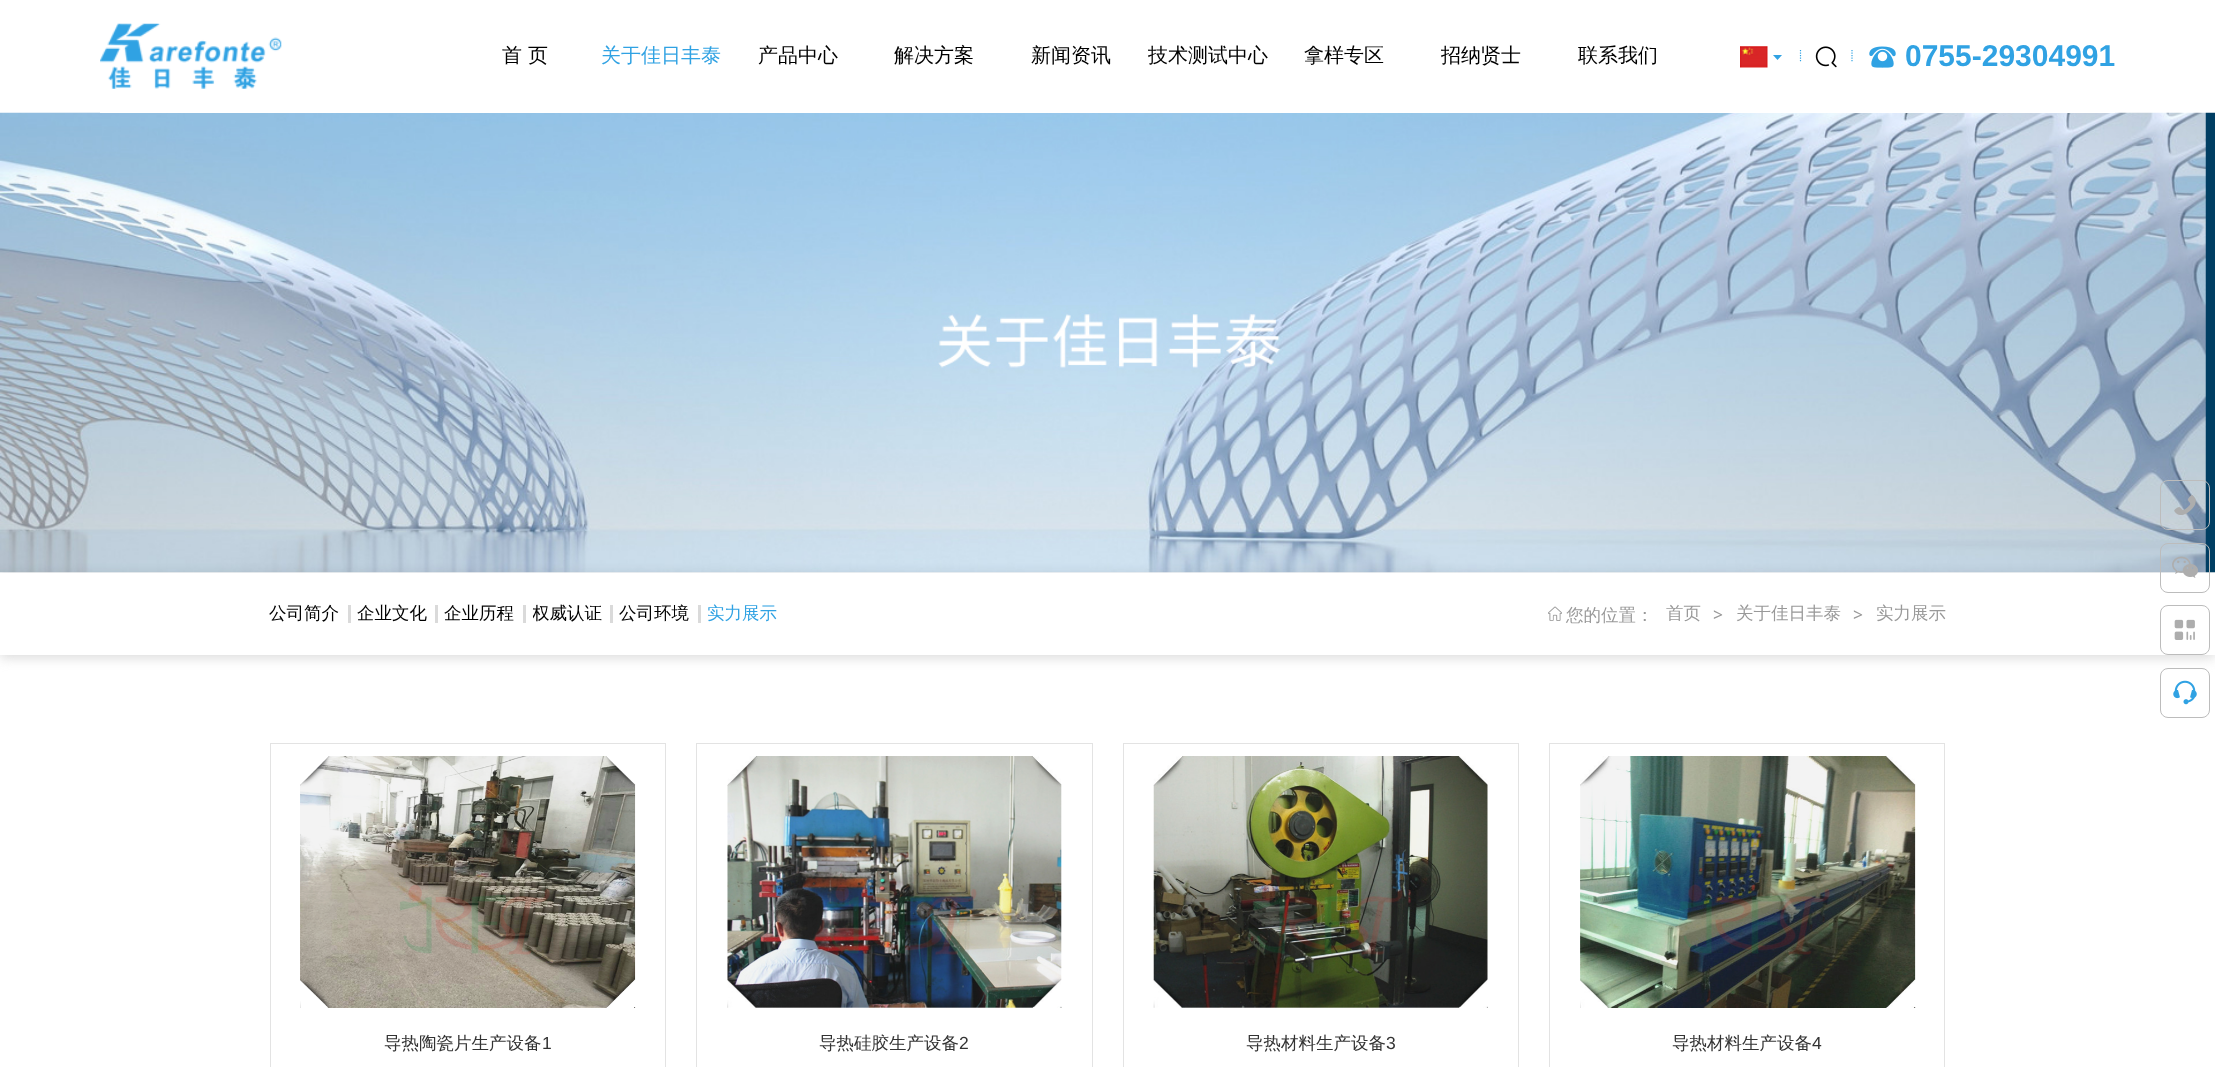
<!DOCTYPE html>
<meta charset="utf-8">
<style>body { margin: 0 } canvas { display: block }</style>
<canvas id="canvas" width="2215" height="1067"></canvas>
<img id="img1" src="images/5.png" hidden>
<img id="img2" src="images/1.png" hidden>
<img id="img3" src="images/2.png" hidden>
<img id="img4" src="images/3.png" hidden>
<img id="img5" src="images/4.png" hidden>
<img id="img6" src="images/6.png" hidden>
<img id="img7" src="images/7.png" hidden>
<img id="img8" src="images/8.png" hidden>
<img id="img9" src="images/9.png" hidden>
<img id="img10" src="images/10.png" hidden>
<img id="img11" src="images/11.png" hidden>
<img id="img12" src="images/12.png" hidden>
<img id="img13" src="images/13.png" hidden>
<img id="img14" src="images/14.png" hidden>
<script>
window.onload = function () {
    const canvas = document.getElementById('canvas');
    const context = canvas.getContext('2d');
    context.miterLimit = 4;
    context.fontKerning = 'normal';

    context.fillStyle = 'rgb(255, 255, 255)';
    context.fillRect(0, 0, 2215, 1067);
    context.save();
    context.beginPath();
    context.moveTo(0, 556);
    context.lineTo(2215, 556);
    context.lineTo(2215, 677);
    context.lineTo(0, 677);
    context.closePath();
    context.moveTo(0, 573);
    context.lineTo(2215, 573);
    context.lineTo(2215, 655);
    context.lineTo(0, 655);
    context.closePath();
    context.clip('evenodd');
    context.fillStyle = 'rgb(219, 219, 219)';
    context.filter = 'blur(6px)';
    context.beginPath();
    context.rect(0, 575, 2215, 83);
    context.fill();
    context.filter = 'none';
    context.restore();
    context.drawImage(document.getElementById('img1'), 0, 112, 2215, 461);
    context.fillRect(100, 112, 2015, 1);
    context.drawImage(document.getElementById('img2'), 100, 23, 182, 66);
    context.drawImage(document.getElementById('img3'), 1740, 46, 28, 22);
    context.fillStyle = 'rgb(48, 162, 227)';
    context.beginPath();
    context.moveTo(1782, 55);
    context.lineTo(1777.5, 60);
    context.lineTo(1773, 55);
    context.closePath();
    context.fill();
    context.beginPath();
    context.moveTo(1800.5, 50);
    context.lineTo(1800.5, 62.5);
    context.moveTo(1852, 50);
    context.lineTo(1852, 62.5);
    context.strokeStyle = 'rgb(48, 162, 227)';
    context.lineWidth = 1.2;
    context.setLineDash([1.25, 1.25]);
    context.stroke();
    context.drawImage(document.getElementById('img4'), 1815, 46, 22, 22);
    context.drawImage(document.getElementById('img5'), 1869, 46, 27, 22);
    context.fillStyle = 'rgb(218, 218, 218)';
    context.fillRect(348, 605, 3, 18);
    context.fillRect(435, 605, 3, 18);
    context.fillRect(523, 605, 3, 18);
    context.fillRect(610, 605, 3, 18);
    context.fillRect(698, 605, 3, 18);
    context.drawImage(document.getElementById('img6'), 1548, 606, 14, 15);
    context.beginPath();
    context.roundRect(2160.5, 480.5, 49, 49, 7.5);
    context.strokeStyle = 'rgb(188, 188, 188)';
    context.lineWidth = 1;
    context.setLineDash([]);
    context.stroke();
    context.drawImage(document.getElementById('img7'), 2174, 495, 22, 20);
    context.beginPath();
    context.roundRect(2160.5, 543.5, 49, 49, 7.5);
    context.stroke();
    context.drawImage(document.getElementById('img8'), 2172, 556, 26, 22);
    context.beginPath();
    context.roundRect(2160.5, 605.5, 49, 49, 7.5);
    context.stroke();
    context.drawImage(document.getElementById('img9'), 2174, 619, 21, 21);
    context.beginPath();
    context.roundRect(2160.5, 668.5, 49, 49, 7.5);
    context.stroke();
    context.drawImage(document.getElementById('img10'), 2173, 680, 24, 25);
    context.strokeStyle = 'rgb(227, 227, 227)';
    context.strokeRect(270.5, 743.5, 395, 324);
    context.drawImage(document.getElementById('img11'), 300, 756, 336, 252);
    context.strokeRect(696.5, 743.5, 396, 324);
    context.drawImage(document.getElementById('img12'), 727, 756, 335, 252);
    context.strokeRect(1123.5, 743.5, 395, 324);
    context.drawImage(document.getElementById('img13'), 1153, 756, 335, 252);
    context.strokeRect(1549.5, 743.5, 395, 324);
    context.drawImage(document.getElementById('img14'), 1580, 756, 336, 252);
    context.font = '500 20px WenQuanYi Zen Hei';
    context.fillStyle = 'rgb(0, 0, 0)';
    context.fillText('首 页', 502, 62);
    context.fillStyle = 'rgb(48, 162, 227)';
    context.fillText('关于佳日丰泰', 601, 62);
    context.fillStyle = 'rgb(0, 0, 0)';
    context.fillText('产品中心', 758, 62);
    context.fillText('解决方案', 894, 62);
    context.fillText('新闻资讯', 1031, 62);
    context.fillText('技术测试中心', 1148, 62);
    context.fillText('拿样专区', 1304, 62);
    context.fillText('招纳贤士', 1441, 62);
    context.fillText('联系我们', 1578, 62);
    context.font = 'bold 30px Liberation Sans';
    context.fillStyle = 'rgb(48, 162, 227)';
    context.fillText('0755-29304991', 1905, 66);
    context.font = '500 17.5px WenQuanYi Zen Hei';
    context.fillStyle = 'rgb(0, 0, 0)';
    context.fillText('公司简介', 269, 619);
    context.fillText('企业文化', 357, 619);
    context.fillText('企业历程', 444, 619);
    context.save();
    context.beginPath();
    context.rect(533, 603, 70, 22);
    context.clip();
    context.fillText('权威认证', 532, 619);
    context.restore();
    context.fillText('公司环境', 619, 619);
    context.fillStyle = 'rgb(48, 162, 227)';
    context.fillText('实力展示', 707, 619);
    context.fillStyle = 'rgb(153, 153, 153)';
    context.fillText('您的位置：', 1566, 621);
    context.fillText('首页', 1666, 619);
    context.font = '17.5px Noto Sans';
    context.fillText('>', 1713, 621);
    context.font = '500 17.5px WenQuanYi Zen Hei';
    context.fillText('关于佳日丰泰', 1736, 619);
    context.font = '17.5px Noto Sans';
    context.fillText('>', 1853, 621);
    context.font = '500 17.5px WenQuanYi Zen Hei';
    context.fillText('实力展示', 1876, 619);
    context.fillStyle = 'rgb(51, 51, 51)';
    context.fillText('导热陶瓷片生产设备', 384, 1049);
    context.font = '17.5px Liberation Sans';
    context.fillText('1', 542, 1049);
    context.font = '500 17.5px WenQuanYi Zen Hei';
    context.fillText('导热硅胶生产设备', 819, 1049);
    context.font = '17.5px Liberation Sans';
    context.fillText('2', 959, 1049);
    context.font = '500 17.5px WenQuanYi Zen Hei';
    context.fillText('导热材料生产设备', 1246, 1049);
    context.font = '17.5px Liberation Sans';
    context.fillText('3', 1386, 1049);
    context.font = '500 17.5px WenQuanYi Zen Hei';
    context.fillText('导热材料生产设备', 1672, 1049);
    context.font = '17.5px Liberation Sans';
    context.fillText('4', 1812, 1049);
};
</script>
